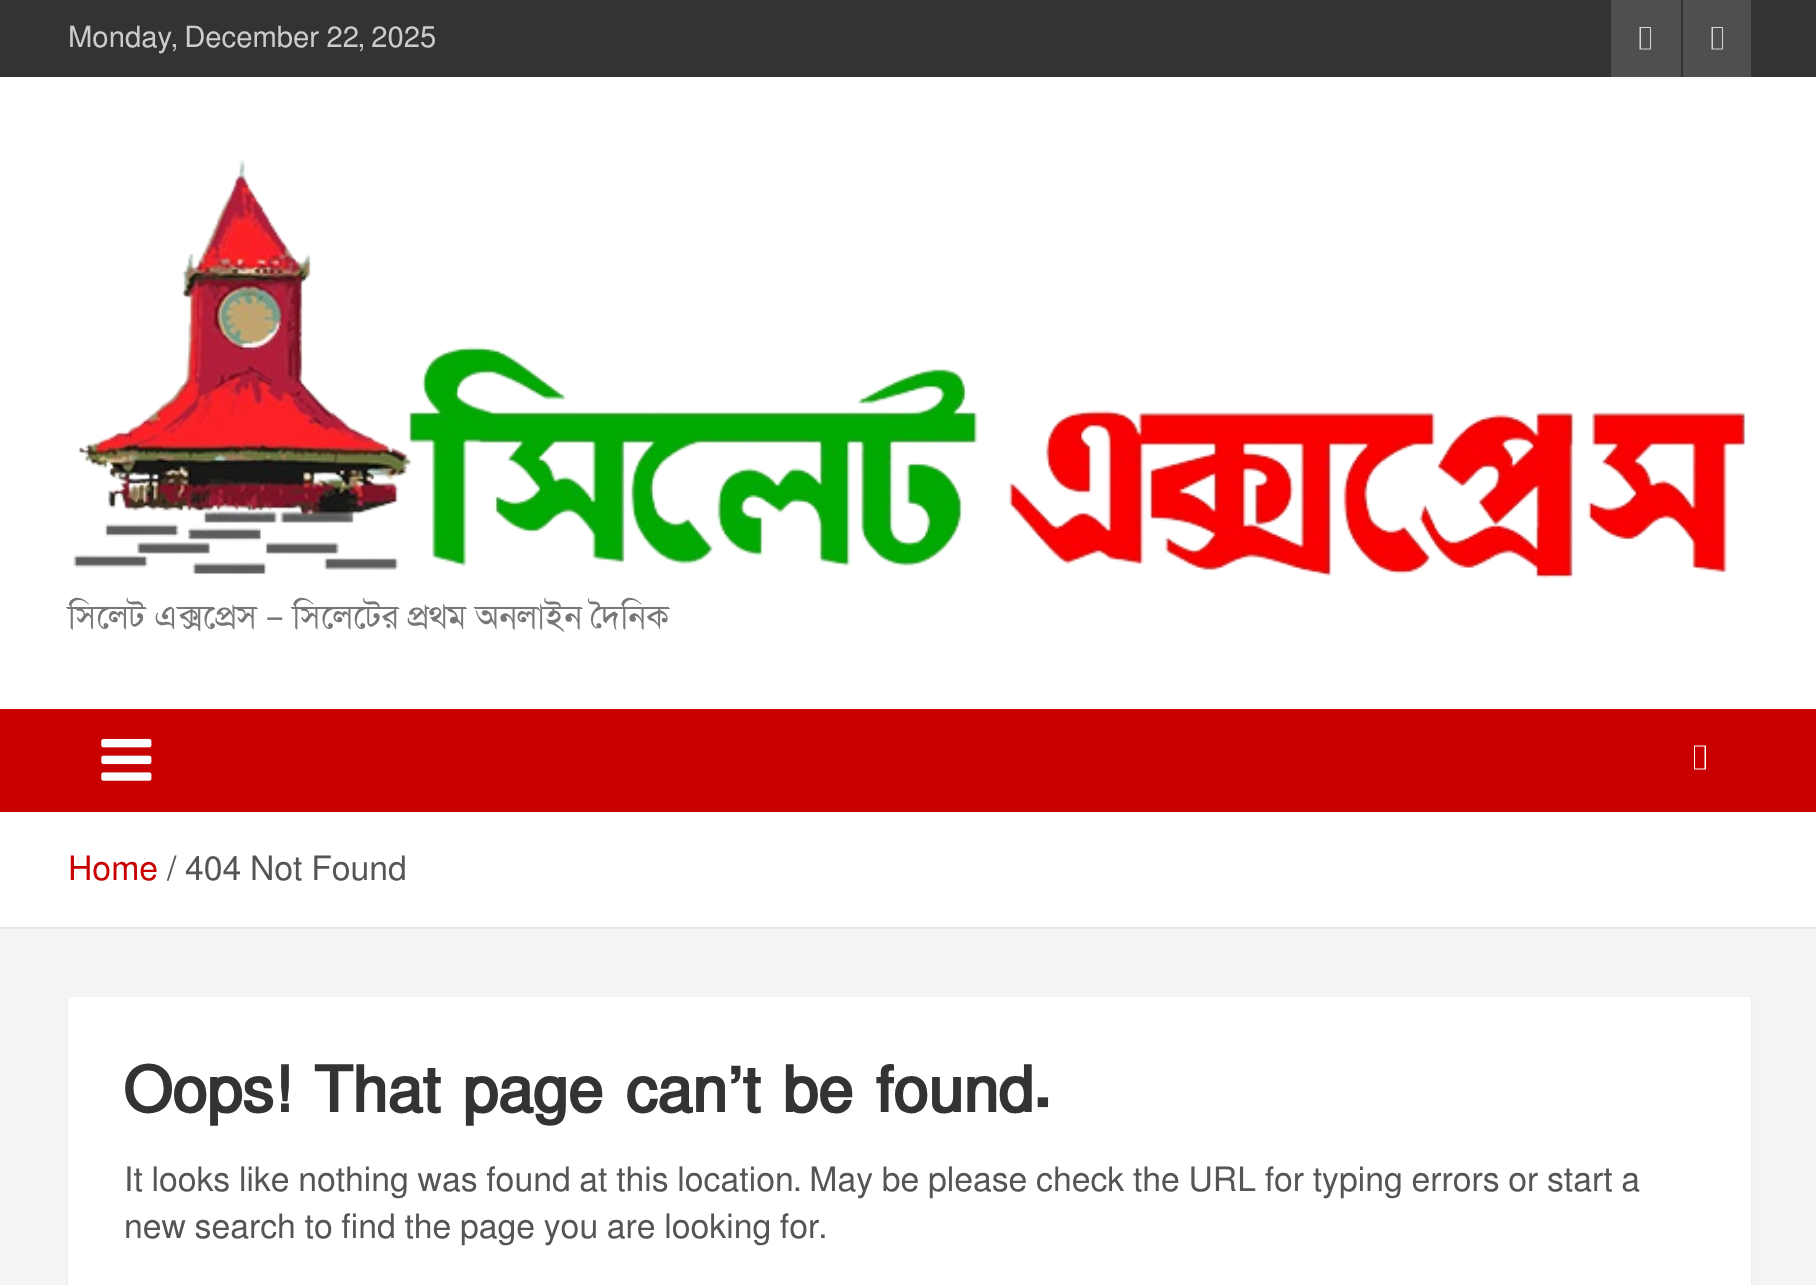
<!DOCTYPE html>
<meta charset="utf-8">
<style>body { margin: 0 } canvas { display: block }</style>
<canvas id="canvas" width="1816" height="1285"></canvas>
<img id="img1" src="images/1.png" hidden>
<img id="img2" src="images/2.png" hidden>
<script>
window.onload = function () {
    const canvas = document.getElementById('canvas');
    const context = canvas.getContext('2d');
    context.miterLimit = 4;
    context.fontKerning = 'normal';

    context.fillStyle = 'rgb(244, 244, 244)';
    context.fillRect(0, 0, 1816, 1285);
    context.fillStyle = 'rgb(51, 51, 51)';
    context.fillRect(0, 0, 1816, 77);
    context.fillStyle = 'rgb(79, 79, 79)';
    context.fillRect(1611, 0, 70, 77);
    context.fillStyle = 'rgb(214, 214, 214)';
    context.beginPath();
    context.moveTo(1639.5, 49.5);
    context.lineTo(1639.5, 27);
    context.lineTo(1651, 27);
    context.lineTo(1651, 49.5);
    context.closePath();
    context.moveTo(1641, 48.5);
    context.lineTo(1650, 48.5);
    context.lineTo(1650, 28);
    context.lineTo(1641, 28);
    context.closePath();
    context.fill();
    context.fillStyle = 'rgb(79, 79, 79)';
    context.fillRect(1683, 0, 68, 77);
    context.fillStyle = 'rgb(214, 214, 214)';
    context.beginPath();
    context.moveTo(1711.5, 49.5);
    context.lineTo(1711.5, 27);
    context.lineTo(1723, 27);
    context.lineTo(1723, 49.5);
    context.closePath();
    context.moveTo(1713, 48.5);
    context.lineTo(1722, 48.5);
    context.lineTo(1722, 28);
    context.lineTo(1713, 28);
    context.closePath();
    context.fill();
    context.fillStyle = 'rgb(255, 255, 255)';
    context.fillRect(0, 77, 1816, 632);
    context.drawImage(document.getElementById('img1'), 73, 158, 1672, 420);
    context.fillStyle = 'rgb(200, 0, 0)';
    context.fillRect(0, 709, 1816, 103);
    context.drawImage(document.getElementById('img2'), 101, 738, 51, 43);
    context.fillStyle = 'rgb(255, 255, 255)';
    context.beginPath();
    context.moveTo(1694, 769.5);
    context.lineTo(1694, 745.5);
    context.lineTo(1706, 745.5);
    context.lineTo(1706, 769.5);
    context.closePath();
    context.moveTo(1695, 768.5);
    context.lineTo(1704.5, 768.5);
    context.lineTo(1704.5, 746.5);
    context.lineTo(1695, 746.5);
    context.closePath();
    context.fill();
    context.fillRect(0, 812, 1816, 115);
    context.fillStyle = 'rgb(230, 230, 230)';
    context.fillRect(0, 927, 1816, 2);
    context.fillStyle = 'rgba(0, 0, 0, 0.1)';
    context.filter = 'blur(1px)';
    context.beginPath();
    context.rect(68, 999, 1683, 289);
    context.fill();
    context.filter = 'none';
    context.fillStyle = 'rgb(255, 255, 255)';
    context.fillRect(68, 997, 1683, 288);
    context.font = '29.25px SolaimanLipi';
    context.fillStyle = 'rgb(204, 204, 204)';
    context.fillText('Monday, December 22, 2025', 68, 47);
    context.font = '33.75px SolaimanLipi';
    context.fillStyle = 'rgb(119, 119, 119)';
    context.fillText('সিলেট এক্সপ্রেস – সিলেটের প্রথম অনলাইন দৈনিক', 68, 628);
    context.fillStyle = 'rgb(200, 0, 0)';
    context.fillText('Home', 68, 880);
    context.fillStyle = 'rgb(85, 85, 85)';
    context.fillText('/', 167, 880);
    context.fillText('404 Not Found', 185, 880);
    context.font = 'bold 63px SolaimanLipi';
    context.fillStyle = 'rgb(51, 51, 51)';
    context.fillText('Oops! That page can’t be found.', 124, 1111);
    context.font = '33.75px SolaimanLipi';
    context.fillStyle = 'rgb(85, 85, 85)';
    context.fillText('It looks like nothing was found at this location. May be please check the URL for typing errors or start a', 124, 1191);
    context.fillText('new search to find the page you are looking for.', 124, 1238);
};
</script>
